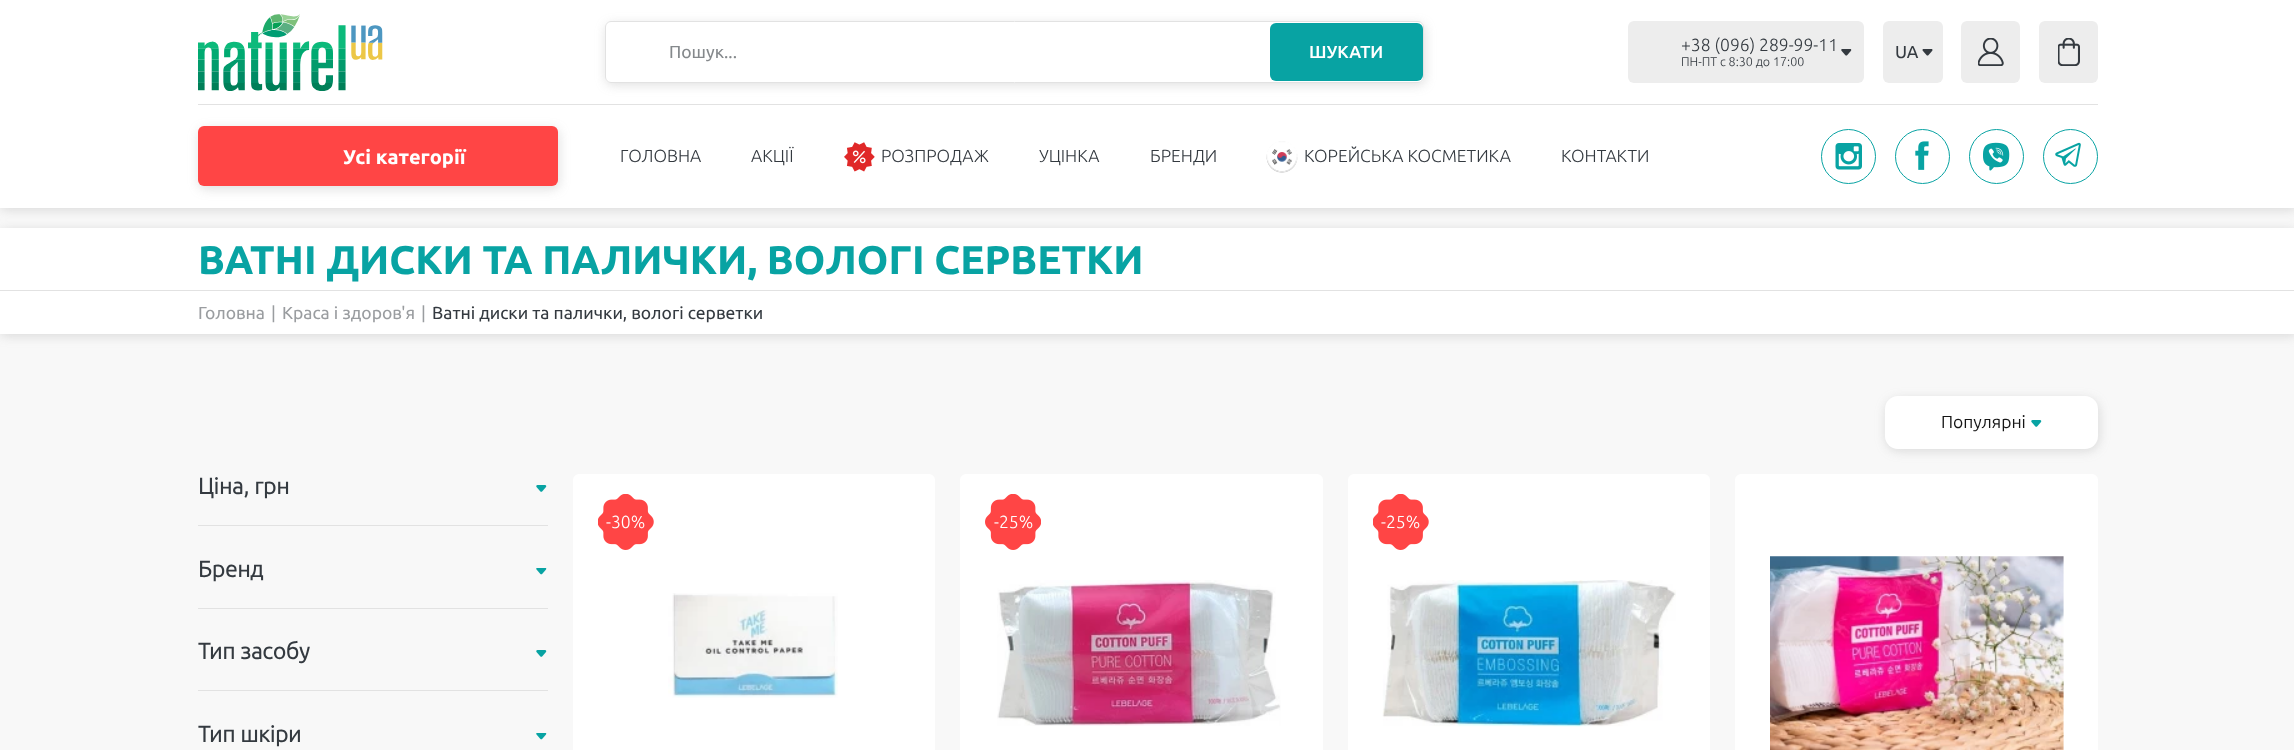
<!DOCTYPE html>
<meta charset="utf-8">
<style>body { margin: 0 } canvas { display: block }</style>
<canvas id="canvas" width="2294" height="750"></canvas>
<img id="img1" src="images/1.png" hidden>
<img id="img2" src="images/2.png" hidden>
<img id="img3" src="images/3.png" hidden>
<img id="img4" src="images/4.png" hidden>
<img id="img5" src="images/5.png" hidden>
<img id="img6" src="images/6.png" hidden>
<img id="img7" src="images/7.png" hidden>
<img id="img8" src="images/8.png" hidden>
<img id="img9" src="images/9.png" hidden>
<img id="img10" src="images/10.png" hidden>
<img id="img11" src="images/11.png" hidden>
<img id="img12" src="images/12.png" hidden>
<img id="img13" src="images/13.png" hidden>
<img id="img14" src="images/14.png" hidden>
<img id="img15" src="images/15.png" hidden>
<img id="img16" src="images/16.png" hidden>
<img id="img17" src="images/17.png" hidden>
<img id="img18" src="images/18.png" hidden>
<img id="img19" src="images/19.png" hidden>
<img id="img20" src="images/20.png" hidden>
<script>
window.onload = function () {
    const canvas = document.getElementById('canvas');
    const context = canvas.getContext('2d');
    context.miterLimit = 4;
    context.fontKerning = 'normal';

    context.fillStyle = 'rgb(248, 248, 248)';
    context.fillRect(0, 0, 2294, 750);
    context.fillStyle = 'rgba(126, 126, 126, 0.25)';
    context.filter = 'blur(5.5px)';
    context.beginPath();
    context.rect(1, 3, 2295, 207);
    context.fill();
    context.filter = 'none';
    context.fillStyle = 'rgb(255, 255, 255)';
    context.fillRect(0, 0, 2294, 208);
    context.fillStyle = 'rgb(226, 226, 226)';
    context.fillRect(198, 104, 1900, 1);
    context.drawImage(document.getElementById('img1'), 198, 14, 185, 77);
    context.save();
    context.beginPath();
    context.moveTo(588, 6);
    context.lineTo(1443, 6);
    context.lineTo(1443, 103);
    context.lineTo(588, 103);
    context.closePath();
    context.moveTo(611, 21);
    context.lineTo(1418, 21);
    context.bezierCurveTo(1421.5, 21, 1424, 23.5, 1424, 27);
    context.lineTo(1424, 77);
    context.bezierCurveTo(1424, 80.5, 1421.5, 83, 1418, 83);
    context.lineTo(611, 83);
    context.bezierCurveTo(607.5, 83, 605, 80.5, 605, 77);
    context.lineTo(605, 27);
    context.bezierCurveTo(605, 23.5, 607.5, 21, 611, 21);
    context.closePath();
    context.clip('evenodd');
    context.fillStyle = 'rgba(126, 126, 126, 0.25)';
    context.filter = 'blur(5.5px)';
    context.beginPath();
    context.roundRect(606, 24, 819, 61, 6);
    context.fill();
    context.filter = 'none';
    context.restore();
    context.beginPath();
    context.roundRect(605.5, 21.5, 818, 61, 5.5);
    context.strokeStyle = 'rgb(226, 226, 226)';
    context.stroke();
    context.fillStyle = 'rgb(8, 163, 163)';
    context.beginPath();
    context.roundRect(1270, 23, 153, 58, 6);
    context.fill();
    context.fillStyle = 'rgb(237, 237, 237)';
    context.beginPath();
    context.roundRect(1628, 21, 236, 62, 6);
    context.fill();
    context.drawImage(document.getElementById('img2'), 1841, 49, 11, 7);
    context.beginPath();
    context.roundRect(1883, 21, 60, 62, 6);
    context.fill();
    context.drawImage(document.getElementById('img3'), 1922, 49, 11, 7);
    context.beginPath();
    context.roundRect(1961, 21, 59, 62, 6);
    context.fill();
    context.drawImage(document.getElementById('img4'), 1978, 38, 26, 28);
    context.beginPath();
    context.roundRect(2039, 21, 59, 62, 6);
    context.fill();
    context.drawImage(document.getElementById('img5'), 2058, 38, 22, 28);
    context.fillStyle = 'rgba(126, 126, 126, 0.25)';
    context.filter = 'blur(5.5px)';
    context.beginPath();
    context.roundRect(199, 129, 360, 60, 6);
    context.fill();
    context.filter = 'none';
    context.fillStyle = 'rgb(255, 69, 69)';
    context.beginPath();
    context.roundRect(198, 126, 360, 60, 6);
    context.fill();
    context.drawImage(document.getElementById('img6'), 844, 142, 31, 30);
    context.drawImage(document.getElementById('img7'), 1266, 141, 32, 32);
    context.beginPath();
    context.arc(1848.5, 156.5, 27, 0, 2 * Math.PI);
    context.strokeStyle = 'rgb(8, 163, 163)';
    context.stroke();
    context.drawImage(document.getElementById('img8'), 1835, 143, 27, 27);
    context.beginPath();
    context.arc(1922.5, 156.5, 27, 0, 2 * Math.PI);
    context.stroke();
    context.drawImage(document.getElementById('img9'), 1915, 141, 14, 29);
    context.beginPath();
    context.arc(1996.5, 156.5, 27, 0, 2 * Math.PI);
    context.stroke();
    context.drawImage(document.getElementById('img10'), 1983, 142, 27, 29);
    context.beginPath();
    context.arc(2070.5, 156.5, 27, 0, 2 * Math.PI);
    context.stroke();
    context.drawImage(document.getElementById('img11'), 2055, 142, 26, 25);
    context.fillStyle = 'rgba(126, 126, 126, 0.25)';
    context.filter = 'blur(5.5px)';
    context.beginPath();
    context.rect(1, 230, 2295, 106);
    context.fill();
    context.filter = 'none';
    context.fillStyle = 'rgb(255, 255, 255)';
    context.fillRect(0, 228, 2294, 106);
    context.fillStyle = 'rgb(226, 226, 226)';
    context.fillRect(0, 290, 2294, 1);
    context.drawImage(document.getElementById('img12'), 536, 485, 11, 7);
    context.fillRect(198, 525, 350, 1);
    context.drawImage(document.getElementById('img13'), 536, 568, 11, 7);
    context.fillRect(198, 608, 350, 1);
    context.drawImage(document.getElementById('img12'), 536, 650, 11, 7);
    context.fillRect(198, 690, 350, 1);
    context.drawImage(document.getElementById('img13'), 536, 733, 11, 7);
    context.fillStyle = 'rgba(126, 126, 126, 0.25)';
    context.filter = 'blur(5.5px)';
    context.beginPath();
    context.roundRect(1886, 399, 213, 52, 13);
    context.fill();
    context.filter = 'none';
    context.fillStyle = 'rgb(255, 255, 255)';
    context.beginPath();
    context.roundRect(1885, 396, 213, 53, 13);
    context.fill();
    context.drawImage(document.getElementById('img14'), 2031, 420, 11, 7);
    context.beginPath();
    context.roundRect(573, 474, 362, 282, 6);
    context.fill();
    context.drawImage(document.getElementById('img15'), 598, 494, 56, 56);
    context.drawImage(document.getElementById('img16'), 668, 593, 170, 105);
    context.beginPath();
    context.roundRect(960, 474, 363, 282, 6);
    context.fill();
    context.drawImage(document.getElementById('img17'), 985, 494, 56, 56);
    context.drawImage(document.getElementById('img18'), 997, 580, 284, 146);
    context.beginPath();
    context.roundRect(1348, 474, 362, 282, 6);
    context.fill();
    context.drawImage(document.getElementById('img15'), 1373, 494, 56, 56);
    context.drawImage(document.getElementById('img19'), 1382, 580, 294, 147);
    context.beginPath();
    context.roundRect(1735, 474, 363, 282, 6);
    context.fill();
    context.drawImage(document.getElementById('img20'), 1770, 556, 294, 194);
    context.font = '17.5px Ubuntu';
    context.fillStyle = 'rgb(133, 137, 140)';
    context.fillText('Пошук...', 669, 58);
    context.font = '500 17.5px Ubuntu';
    context.fillStyle = 'rgb(255, 255, 255)';
    context.fillText('ШУКАТИ', 1309, 58);
    context.font = '300 17.5px Ubuntu';
    context.fillStyle = 'rgb(52, 58, 64)';
    context.fillText('+38 (096) 289-99-11', 1681, 51);
    context.font = '300 12.5px Ubuntu';
    context.fillText('ПН-ПТ с 8:30 до 17:00', 1681, 66);
    context.font = '17.5px Ubuntu';
    context.fillText('UA', 1895, 58);
    context.font = 'bold 20px Ubuntu';
    context.fillStyle = 'rgb(255, 255, 255)';
    context.fillText('Усі категорії', 343, 164);
    context.font = '300 17.5px Ubuntu';
    context.fillStyle = 'rgb(52, 58, 64)';
    context.fillText('ГОЛОВНА', 620, 162);
    context.fillText('АКЦІЇ', 751, 162);
    context.fillText('РОЗПРОДАЖ', 881, 162);
    context.fillText('УЦІНКА', 1039, 162);
    context.fillText('БРЕНДИ', 1150, 162);
    context.fillText('КОРЕЙСЬКА КОСМЕТИКА', 1304, 162);
    context.fillText('КОНТАКТИ', 1561, 162);
    context.font = 'bold 40px Ubuntu';
    context.fillStyle = 'rgb(8, 163, 163)';
    context.fillText('ВАТНІ ДИСКИ ТА ПАЛИЧКИ, ВОЛОГІ СЕРВЕТКИ', 198, 274);
    context.font = '17.5px Ubuntu';
    context.fillStyle = 'rgb(154, 157, 160)';
    context.fillText('Головна', 198, 319);
    context.fillText('|', 271, 319);
    context.fillText('Краса і здоров\'я', 282, 319);
    context.fillText('|', 421, 319);
    context.fillStyle = 'rgb(52, 58, 64)';
    context.fillText('Ватні диски та палички, вологі серветки', 432, 319);
    context.font = 'bold 22.5px "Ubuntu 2"';
    context.fillText('Ціна, грн', 198, 494);
    context.fillText('Бренд', 198, 577);
    context.fillText('Тип засобу', 198, 659);
    context.fillText('Тип шкіри', 198, 742);
    context.font = '17.5px "Ubuntu 2"';
    context.fillStyle = 'rgb(21, 21, 21)';
    context.fillText('Популярні', 1941, 428);
    context.font = '300 17.5px Ubuntu';
    context.fillStyle = 'rgb(255, 255, 255)';
    context.fillText('-30%', 606, 528);
    context.fillText('-25%', 994, 528);
    context.fillText('-25%', 1381, 528);
};
</script>
